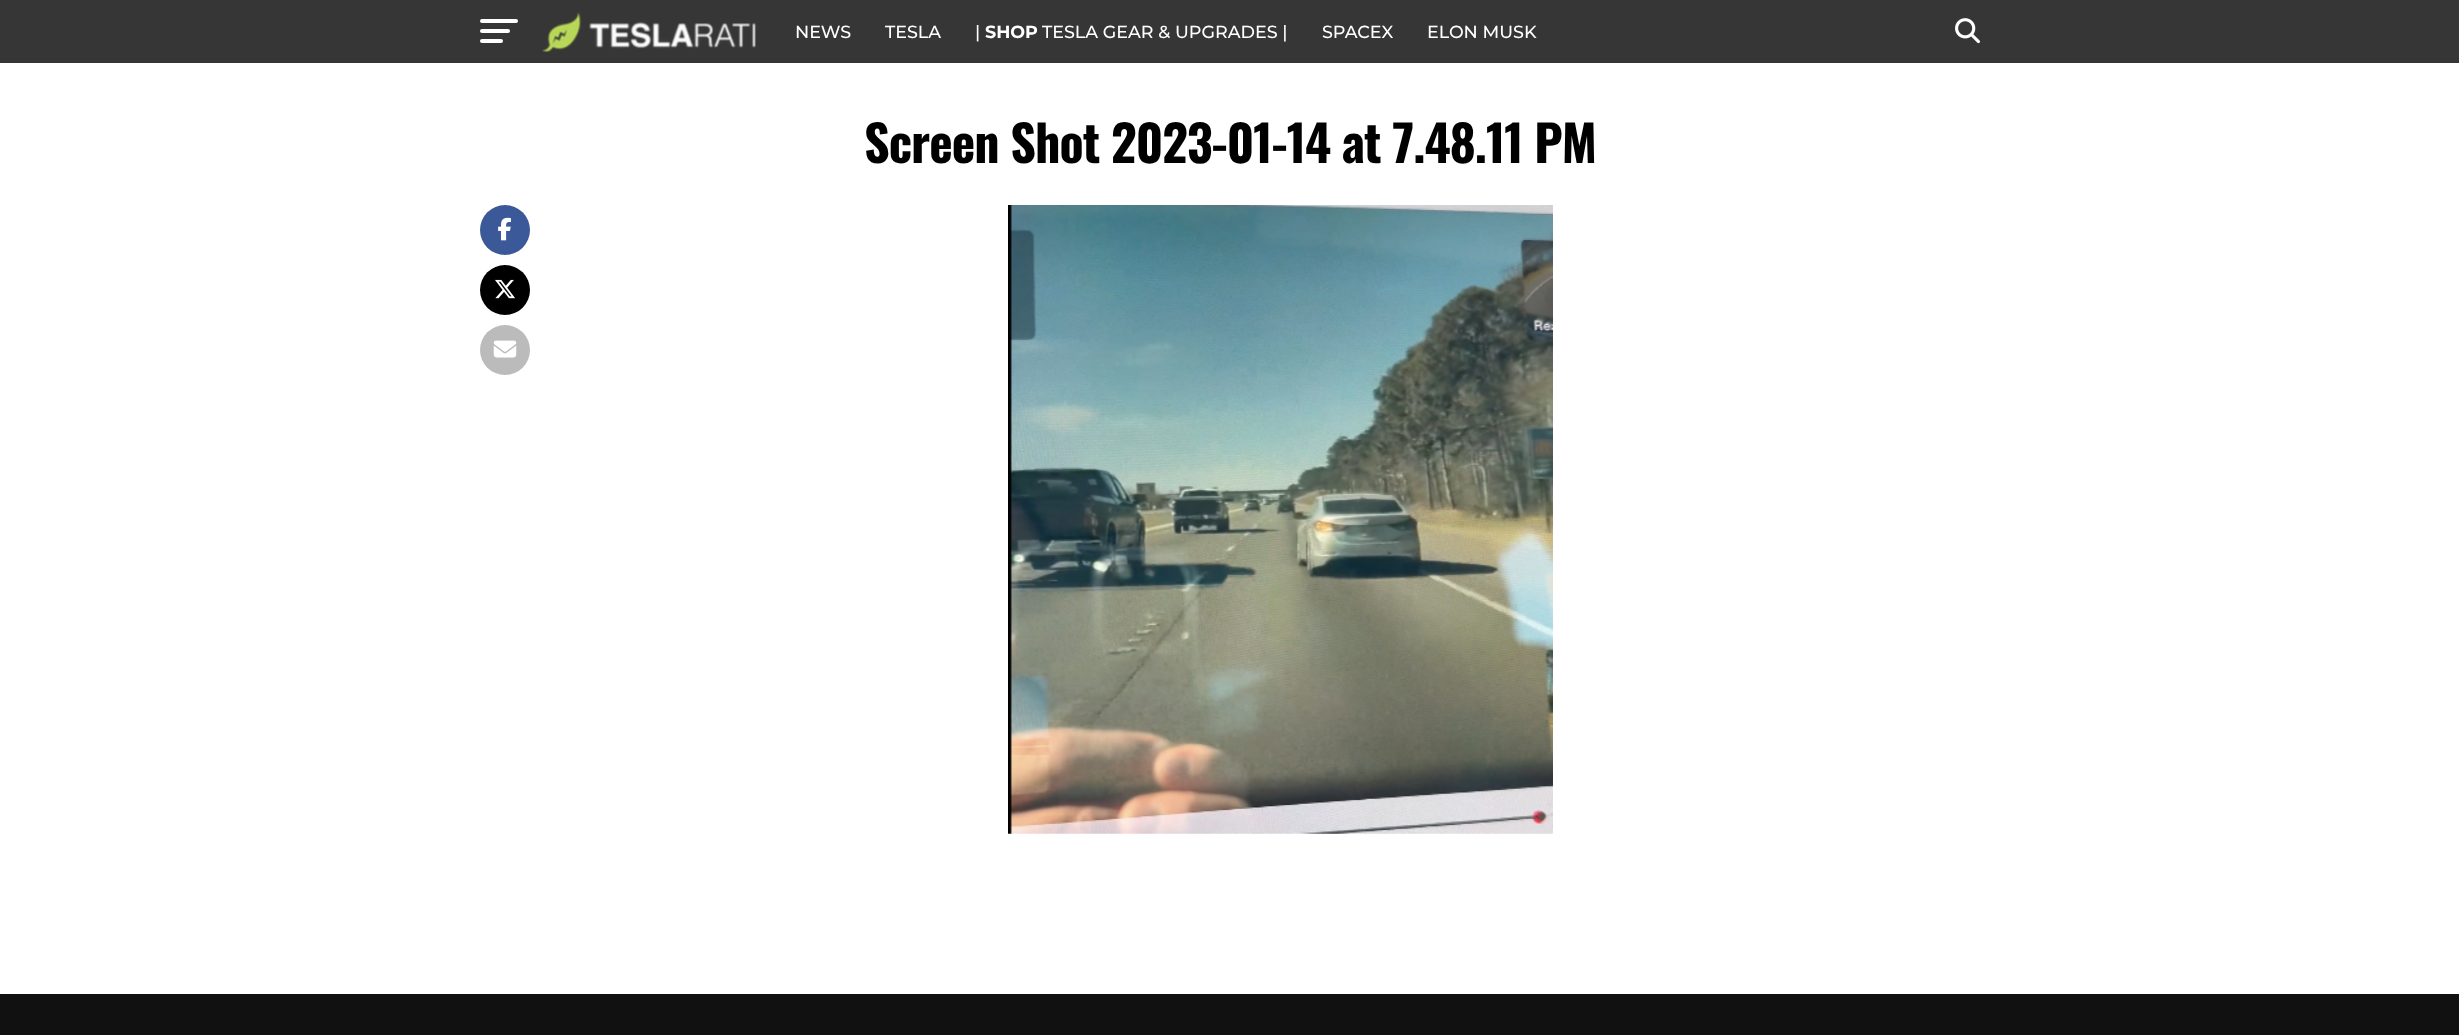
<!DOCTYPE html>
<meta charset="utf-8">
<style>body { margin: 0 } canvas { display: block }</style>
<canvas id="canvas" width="2459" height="1035"></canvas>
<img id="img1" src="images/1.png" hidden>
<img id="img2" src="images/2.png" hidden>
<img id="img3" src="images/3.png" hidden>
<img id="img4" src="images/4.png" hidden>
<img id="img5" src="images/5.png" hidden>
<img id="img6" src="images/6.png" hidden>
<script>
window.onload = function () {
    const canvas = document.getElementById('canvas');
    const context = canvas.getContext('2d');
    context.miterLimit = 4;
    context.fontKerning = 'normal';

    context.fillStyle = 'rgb(255, 255, 255)';
    context.fillRect(0, 0, 2459, 1035);
    context.fillStyle = 'rgb(54, 54, 54)';
    context.fillRect(0, 0, 2459, 63);
    context.fillStyle = 'rgb(255, 255, 255)';
    context.beginPath();
    context.roundRect(480, 19, 38, 4, 2);
    context.fill();
    context.beginPath();
    context.roundRect(480, 29, 30, 4, 2);
    context.fill();
    context.beginPath();
    context.roundRect(480, 39, 23, 4, 2);
    context.fill();
    context.drawImage(document.getElementById('img1'), 542, 12, 214, 40);
    context.drawImage(document.getElementById('img2'), 1955, 18, 25, 26);
    context.fillStyle = 'rgb(59, 89, 152)';
    context.beginPath();
    context.arc(505, 230, 25, 0, 2 * Math.PI);
    context.fill();
    context.drawImage(document.getElementById('img3'), 498, 217, 13, 24);
    context.fillStyle = 'rgb(0, 0, 0)';
    context.beginPath();
    context.arc(505, 290, 25, 0, 2 * Math.PI);
    context.fill();
    context.drawImage(document.getElementById('img4'), 495, 279, 20, 20);
    context.fillStyle = 'rgb(187, 187, 187)';
    context.beginPath();
    context.arc(505, 350, 25, 0, 2 * Math.PI);
    context.fill();
    context.drawImage(document.getElementById('img5'), 493, 340, 24, 18);
    context.drawImage(document.getElementById('img6'), 1008, 205, 545, 629);
    context.fillStyle = 'rgb(17, 17, 17)';
    context.fillRect(0, 994, 2459, 41);
    context.font = '500 17.5px Montserrat';
    context.fillStyle = 'rgb(255, 255, 255)';
    context.fillText('NEWS', 795, 38);
    context.fillText('TESLA', 885, 38);
    context.fillText('|', 975, 38);
    context.font = 'bold 17.5px Montserrat';
    context.fillText('SHOP', 985, 38);
    context.font = '500 17.5px Montserrat';
    context.fillText('TESLA GEAR & UPGRADES |', 1042, 38);
    context.fillText('SPACEX', 1322, 38);
    context.fillText('ELON MUSK', 1427, 38);
    context.letterSpacing = '-1px';
    context.font = 'bold 50px Oswald';
    context.fillStyle = 'rgb(0, 0, 0)';
    context.fillText('Screen Shot 2023-01-14 at 7.48.11 PM', 864, 163);
};
</script>
